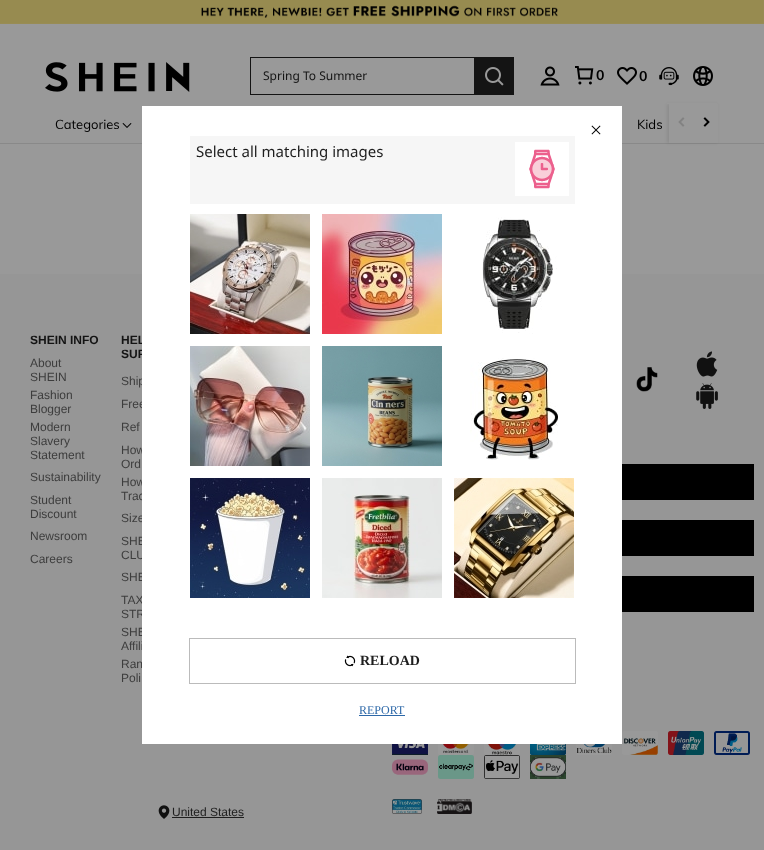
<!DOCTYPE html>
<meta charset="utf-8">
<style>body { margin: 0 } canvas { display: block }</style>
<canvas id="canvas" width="764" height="850"></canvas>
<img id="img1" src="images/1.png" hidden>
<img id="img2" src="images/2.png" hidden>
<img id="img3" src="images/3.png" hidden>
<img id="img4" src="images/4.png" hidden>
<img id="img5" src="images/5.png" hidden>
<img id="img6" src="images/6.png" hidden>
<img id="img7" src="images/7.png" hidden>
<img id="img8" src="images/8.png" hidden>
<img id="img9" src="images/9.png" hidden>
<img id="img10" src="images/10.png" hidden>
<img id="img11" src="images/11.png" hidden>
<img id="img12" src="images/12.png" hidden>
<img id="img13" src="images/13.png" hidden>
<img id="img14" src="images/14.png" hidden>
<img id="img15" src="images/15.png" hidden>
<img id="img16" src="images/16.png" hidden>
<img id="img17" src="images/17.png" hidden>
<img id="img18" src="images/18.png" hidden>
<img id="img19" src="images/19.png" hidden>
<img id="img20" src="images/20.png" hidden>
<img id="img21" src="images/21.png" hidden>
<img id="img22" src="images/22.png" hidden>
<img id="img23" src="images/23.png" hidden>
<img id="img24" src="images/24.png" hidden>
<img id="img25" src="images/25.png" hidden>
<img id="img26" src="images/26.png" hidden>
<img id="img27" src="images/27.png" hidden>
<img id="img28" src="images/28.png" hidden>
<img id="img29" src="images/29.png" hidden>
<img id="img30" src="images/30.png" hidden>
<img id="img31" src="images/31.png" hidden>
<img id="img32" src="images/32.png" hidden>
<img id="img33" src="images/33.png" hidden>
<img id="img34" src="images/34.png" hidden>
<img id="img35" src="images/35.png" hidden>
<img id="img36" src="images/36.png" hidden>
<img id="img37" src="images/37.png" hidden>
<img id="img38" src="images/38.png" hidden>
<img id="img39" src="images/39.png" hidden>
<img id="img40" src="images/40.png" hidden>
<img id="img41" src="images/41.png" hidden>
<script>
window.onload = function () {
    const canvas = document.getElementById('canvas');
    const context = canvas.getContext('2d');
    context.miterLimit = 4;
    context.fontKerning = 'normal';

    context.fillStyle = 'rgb(153, 153, 153)';
    context.fillRect(0, 0, 764, 850);
    context.drawImage(document.getElementById('img1'), 0, 0, 764, 24);
    context.fillStyle = 'rgb(137, 137, 137)';
    context.fillRect(0, 143, 764, 1);
    context.fillStyle = 'rgba(0, 0, 0, 0.08)';
    context.filter = 'blur(1.5px)';
    context.beginPath();
    context.rect(667, 104, 50, 39);
    context.fill();
    context.filter = 'none';
    context.fillStyle = 'rgb(153, 153, 153)';
    context.fillRect(667, 103, 50, 1);
    context.drawImage(document.getElementById('img2'), 45, 62, 145, 30);
    context.fillStyle = 'rgb(20, 20, 20)';
    context.fillRect(250, 57, 224, 1);
    context.fillRect(250, 94, 224, 1);
    context.fillRect(250, 57, 1, 38);
    context.fillRect(474, 57, 40, 38);
    context.drawImage(document.getElementById('img3'), 485, 67, 19, 19);
    context.drawImage(document.getElementById('img4'), 540, 66, 20, 20);
    context.drawImage(document.getElementById('img5'), 575, 66, 19, 19);
    context.drawImage(document.getElementById('img6'), 617, 67, 20, 18);
    context.drawImage(document.getElementById('img7'), 659, 67, 20, 19);
    context.drawImage(document.getElementById('img8'), 693, 66, 20, 20);
    context.drawImage(document.getElementById('img9'), 122, 123, 10, 5);
    context.fillStyle = 'rgb(153, 153, 153)';
    context.fillRect(669, 104, 49, 39);
    context.drawImage(document.getElementById('img10'), 678, 117, 7, 10);
    context.drawImage(document.getElementById('img11'), 703, 117, 7, 10);
    context.fillStyle = 'rgb(150, 150, 150)';
    context.fillRect(0, 274, 764, 576);
    context.drawImage(document.getElementById('img12'), 636, 367, 22, 25);
    context.drawImage(document.getElementById('img13'), 696, 351, 22, 26);
    context.drawImage(document.getElementById('img14'), 696, 383, 22, 26);
    context.fillStyle = 'rgb(0, 0, 0)';
    context.fillRect(622, 464, 132, 36);
    context.fillRect(622, 520, 132, 36);
    context.fillRect(622, 576, 132, 36);
    context.drawImage(document.getElementById('img15'), 392, 744, 36, 11);
    context.drawImage(document.getElementById('img16'), 438, 744, 36, 11);
    context.drawImage(document.getElementById('img17'), 484, 744, 36, 11);
    context.drawImage(document.getElementById('img18'), 530, 744, 36, 11);
    context.drawImage(document.getElementById('img19'), 576, 744, 36, 11);
    context.drawImage(document.getElementById('img20'), 622, 731, 36, 24);
    context.drawImage(document.getElementById('img21'), 668, 731, 36, 24);
    context.drawImage(document.getElementById('img22'), 714, 731, 36, 24);
    context.drawImage(document.getElementById('img23'), 392, 759, 36, 16);
    context.drawImage(document.getElementById('img24'), 438, 755, 36, 24);
    context.drawImage(document.getElementById('img25'), 484, 755, 36, 24);
    context.drawImage(document.getElementById('img26'), 530, 755, 36, 24);
    context.drawImage(document.getElementById('img27'), 158, 805, 12, 14);
    context.fillStyle = 'rgb(30, 30, 30)';
    context.fillRect(172, 817, 72, 1);
    context.drawImage(document.getElementById('img28'), 392, 799, 30, 15);
    context.drawImage(document.getElementById('img29'), 437, 799, 35, 15);
    context.fillStyle = 'rgba(0, 0, 0, 0.3)';
    context.filter = 'blur(0.5px)';
    context.beginPath();
    context.rect(142, 106, 480, 638);
    context.fill();
    context.filter = 'none';
    context.font = '12px Noto Sans';
    context.fillStyle = 'rgb(20, 20, 20)';
    context.fillText('Spring To Summer', 263, 80);
    context.font = 'bold 14px Muli';
    context.fillStyle = 'rgb(0, 0, 0)';
    context.fillText('0', 596, 80);
    context.fillText('0', 639, 81);
    context.font = '13px Muli';
    context.fillText('Categories', 55, 129);
    context.fillText('Kids', 637, 129);
    context.font = 'bold 12px Liberation Sans';
    context.fillStyle = 'rgb(20, 20, 20)';
    context.fillText('SHEIN INFO', 30, 344);
    context.font = '12px Liberation Sans';
    context.fillStyle = 'rgb(61, 61, 61)';
    context.fillText('About', 30, 367);
    context.fillText('SHEIN', 30, 381);
    context.fillText('Fashion', 30, 399);
    context.fillText('Blogger', 30, 413);
    context.fillText('Modern', 30, 431);
    context.fillText('Slavery', 30, 445);
    context.fillText('Statement', 30, 459);
    context.fillText('Sustainability', 30, 481);
    context.fillText('Student', 30, 504);
    context.fillText('Discount', 30, 518);
    context.fillText('Newsroom', 30, 540);
    context.fillText('Careers', 30, 563);
    context.font = 'bold 12px Liberation Sans';
    context.fillStyle = 'rgb(20, 20, 20)';
    context.fillText('HEL', 121, 344);
    context.fillText('SUP', 121, 358);
    context.font = '12px Liberation Sans';
    context.fillStyle = 'rgb(61, 61, 61)';
    context.fillText('Ship', 121, 385);
    context.fillText('Free', 121, 408);
    context.fillText('Ref', 121, 431);
    context.fillText('How', 121, 454);
    context.fillText('Ord', 121, 468);
    context.fillText('How', 121, 486);
    context.fillText('Trac', 121, 500);
    context.fillText('Size', 121, 522);
    context.fillText('SHE', 121, 545);
    context.fillText('CLU', 121, 559);
    context.fillText('SHE', 121, 581);
    context.fillText('TAX', 121, 604);
    context.fillText('STR', 121, 618);
    context.fillText('SHE', 121, 636);
    context.fillText('Affili', 121, 650);
    context.fillText('Ran', 121, 668);
    context.fillText('Poli', 121, 682);
    context.fillStyle = 'rgb(30, 30, 30)';
    context.fillText('United States', 172, 816);
    context.fillStyle = 'rgb(255, 255, 255)';
    context.fillRect(142, 106, 480, 638);
    context.drawImage(document.getElementById('img30'), 591, 125, 10, 10);
    context.fillStyle = 'rgb(246, 246, 246)';
    context.fillRect(190, 136, 385, 68);
    context.font = '15px Noto Sans';
    context.fillStyle = 'rgb(30, 30, 30)';
    context.fillText('Select all matching images', 196, 157);
    context.fillStyle = 'rgb(255, 255, 255)';
    context.fillRect(515, 142, 54, 54);
    context.drawImage(document.getElementById('img31'), 529, 149, 26, 40);
    context.drawImage(document.getElementById('img32'), 190, 214, 120, 120);
    context.drawImage(document.getElementById('img33'), 322, 214, 120, 120);
    context.drawImage(document.getElementById('img34'), 482, 217, 75, 117);
    context.drawImage(document.getElementById('img35'), 190, 346, 120, 120);
    context.drawImage(document.getElementById('img36'), 322, 346, 120, 120);
    context.drawImage(document.getElementById('img37'), 470, 358, 88, 102);
    context.drawImage(document.getElementById('img38'), 190, 478, 120, 120);
    context.drawImage(document.getElementById('img39'), 322, 478, 120, 120);
    context.drawImage(document.getElementById('img40'), 454, 478, 120, 120);
    context.strokeStyle = 'rgb(187, 187, 187)';
    context.strokeRect(189.5, 638.5, 386, 45);
    context.drawImage(document.getElementById('img41'), 344, 655, 12, 12);
    context.font = 'bold 14px Liberation Serif';
    context.fillStyle = 'rgb(30, 30, 30)';
    context.fillText('RELOAD', 360, 665);
    context.font = '12px Liberation Serif';
    context.fillStyle = 'rgb(45, 104, 168)';
    context.fillText('REPORT', 359, 714);
    context.fillRect(359, 715, 46, 1);
};
</script>
